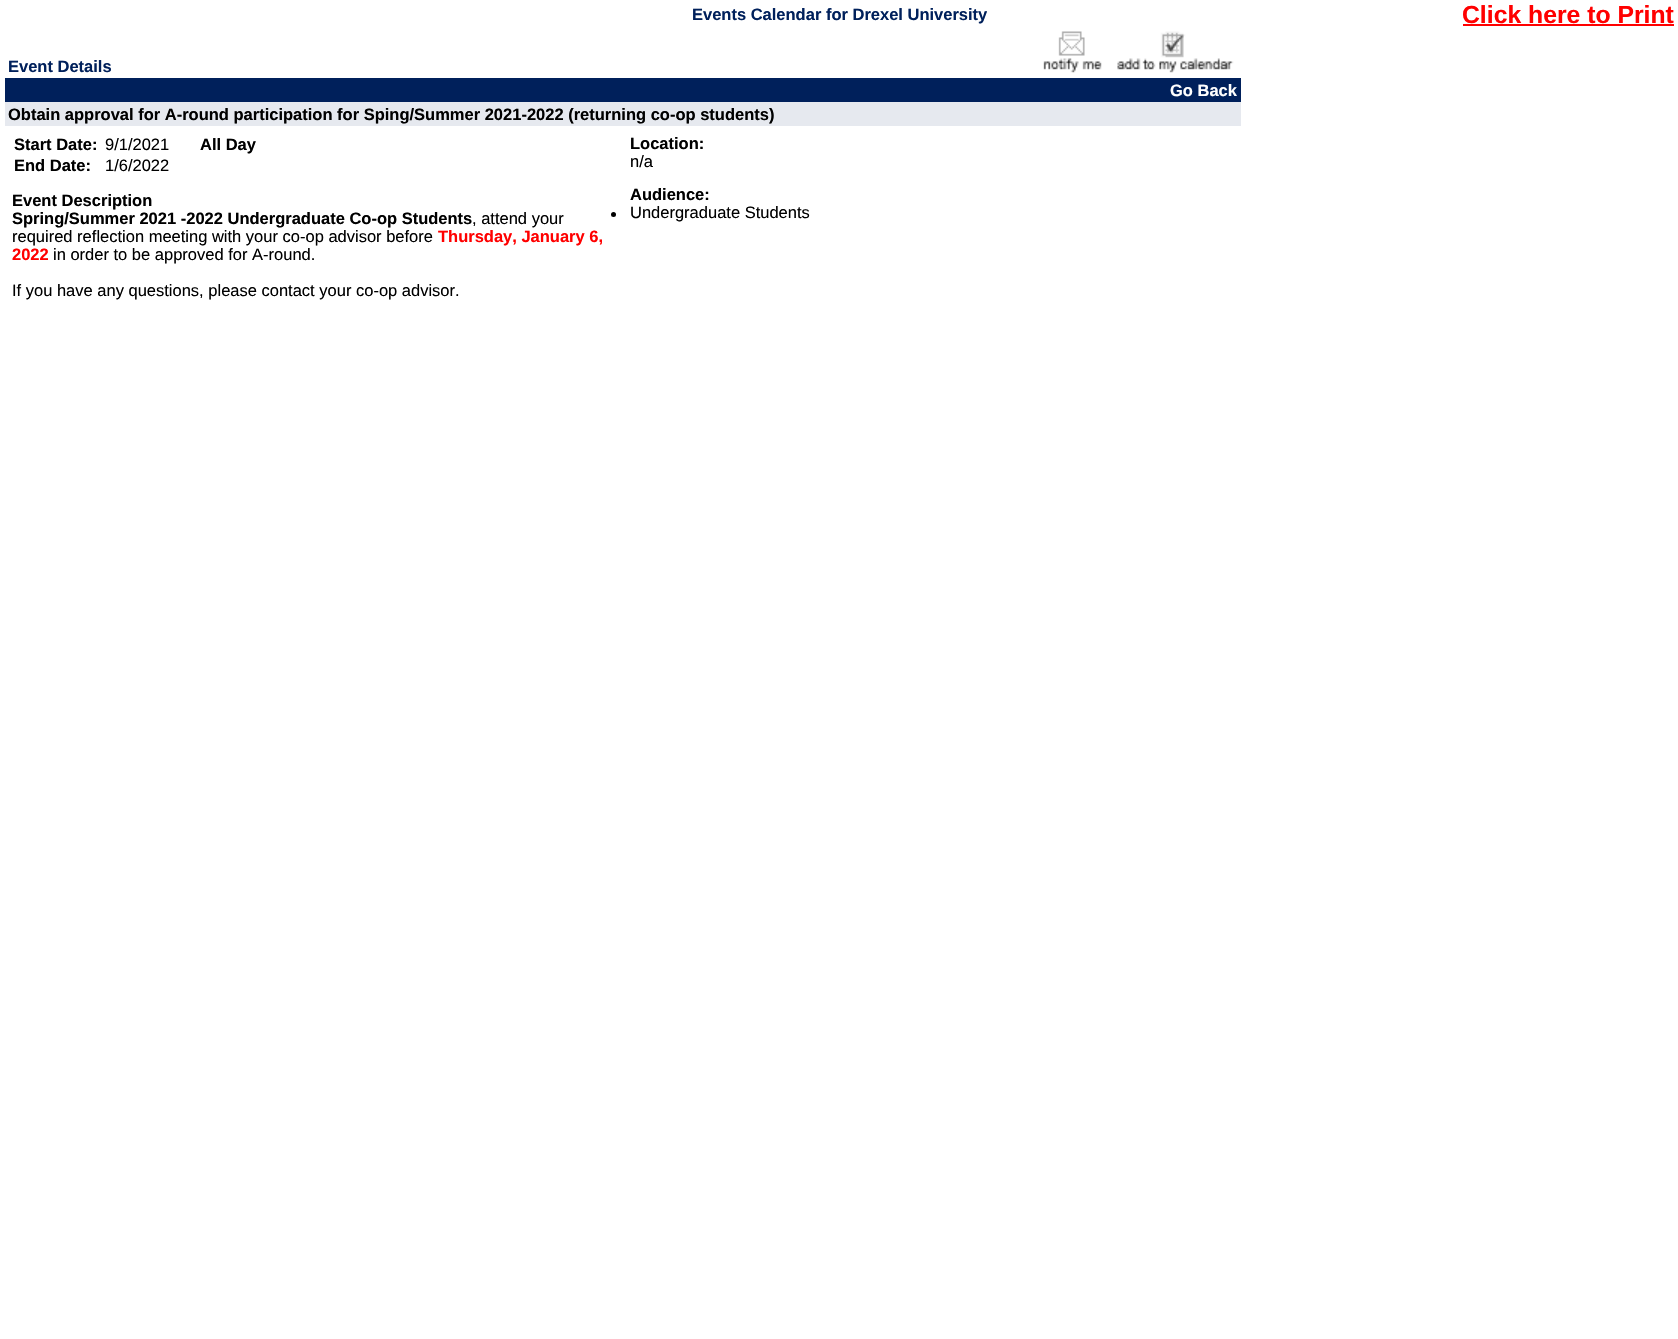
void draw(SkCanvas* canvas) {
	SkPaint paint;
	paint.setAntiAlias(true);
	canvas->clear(0xffffffff);
	SkFont f1(fontMgr->matchFamilyStyle("Liberation Sans", SkFontStyle::Bold()), 16.5);
	f1.setSubpixel(true);
	paint.setColor(0xff00205b);
	canvas->drawString("Events Calendar for Drexel University", 692, 20, f1, paint);
	SkFont f2(fontMgr->matchFamilyStyle("Liberation Sans", SkFontStyle::Bold()), 24.75);
	f2.setSubpixel(true);
	paint.setColor(0xffff0000);
	canvas->drawString("Click here to Print", 1462, 23, f2, paint);
	canvas->drawRect(SkRect::MakeXYWH(1463, 24, 211, 2), paint);
	paint.setColor(0xff00205b);
	canvas->drawString("Event Details", 8, 72, f1, paint);
	canvas->drawImageRect(SkImages::DeferredFromEncodedData(SkData::MakeFromFileName("img1.png")), SkRect::MakeXYWH(1043, 31, 59, 42), SkSamplingOptions());
	canvas->drawImageRect(SkImages::DeferredFromEncodedData(SkData::MakeFromFileName("img2.png")), SkRect::MakeXYWH(1117, 31, 117, 42), SkSamplingOptions());
	canvas->drawRect(SkRect::MakeXYWH(5, 78, 1236, 24), paint);
	paint.setColor(0xffffffff);
	canvas->drawString("Go Back", 1170, 96, f1, paint);
	paint.setColor(0xffe6e9ef);
	canvas->drawRect(SkRect::MakeXYWH(5, 102, 1236, 24), paint);
	paint.setColor(0xff000000);
	canvas->drawString("Obtain approval for A-round participation for Sping/Summer 2021-2022 (returning co-op students)", 8, 120, f1, paint);
	canvas->drawString("Start Date:", 14, 150, f1, paint);
	SkFont f3(fontMgr->matchFamilyStyle("Liberation Sans", SkFontStyle::Normal()), 16.5);
	f3.setSubpixel(true);
	canvas->drawString("9/1/2021", 105, 150, f3, paint);
	canvas->drawString("All Day", 200, 150, f1, paint);
	canvas->drawString("End Date:", 14, 171, f1, paint);
	canvas->drawString("1/6/2022", 105, 171, f3, paint);
	canvas->drawString("Event Description", 12, 206, f1, paint);
	canvas->drawString("Spring/Summer 2021 -2022 Undergraduate Co-op Students", 12, 224, f1, paint);
	canvas->drawString(", attend your", 472, 224, f3, paint);
	canvas->drawString("required reflection meeting with your co-op advisor before", 12, 242, f3, paint);
	paint.setColor(0xffff0000);
	canvas->drawString("Thursday, January 6,", 438, 242, f1, paint);
	canvas->drawString("2022", 12, 260, f1, paint);
	paint.setColor(0xff000000);
	canvas->drawString("in order to be approved for A-round.", 53, 260, f3, paint);
	canvas->drawString("If you have any questions, please contact your co-op advisor.", 12, 296, f3, paint);
	canvas->drawString("Location:", 630, 149, f1, paint);
	canvas->drawString("n/a", 630, 167, f3, paint);
	canvas->drawString("Audience:", 630, 200, f1, paint);
	canvas->drawCircle(613.5, 214.5, 2.5, paint);
	canvas->drawString("Undergraduate Students", 630, 218, f3, paint);
}
